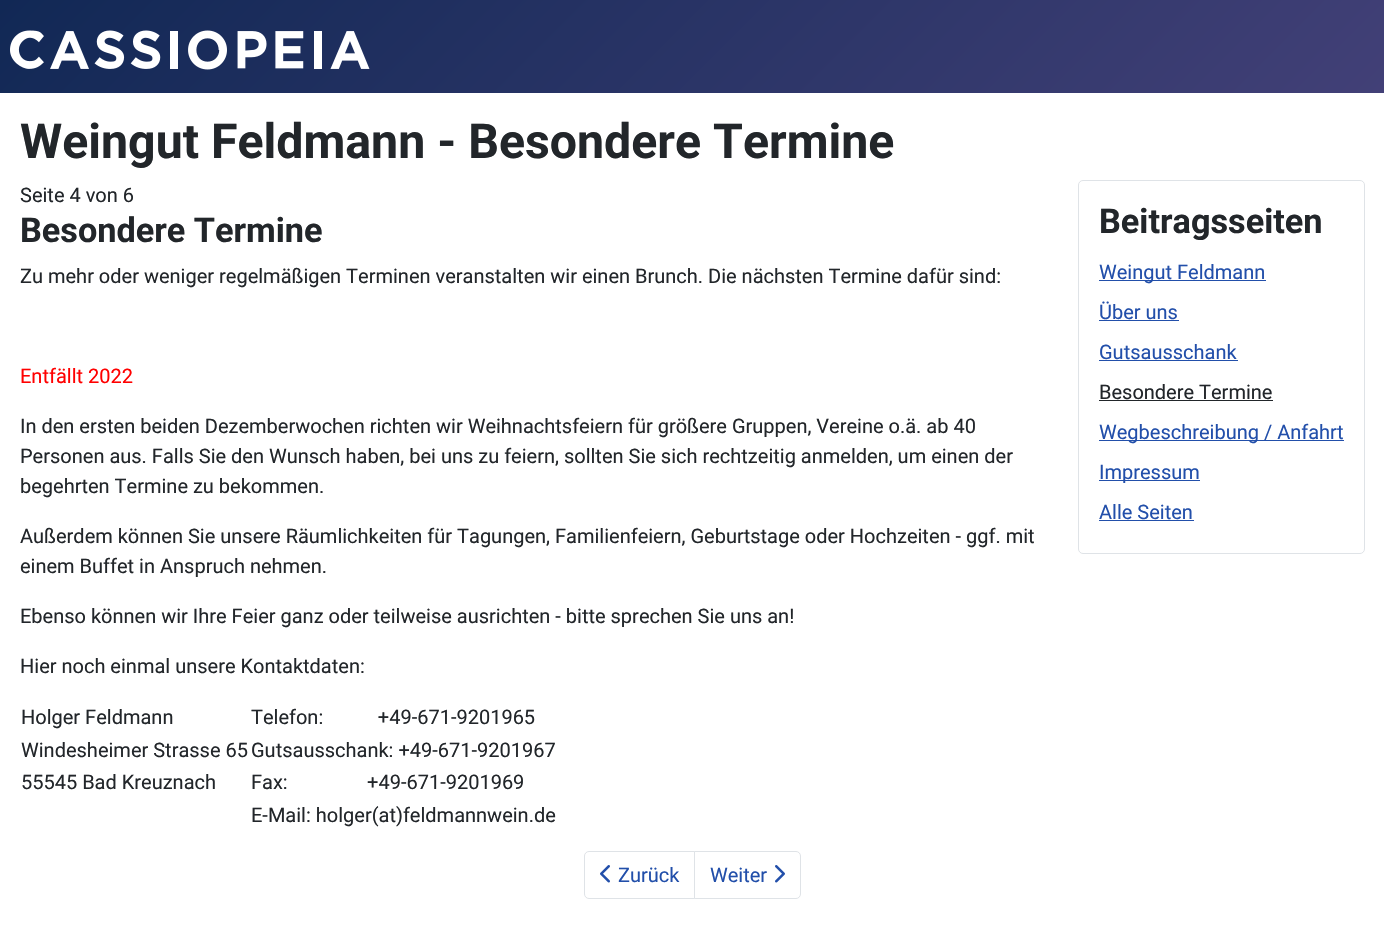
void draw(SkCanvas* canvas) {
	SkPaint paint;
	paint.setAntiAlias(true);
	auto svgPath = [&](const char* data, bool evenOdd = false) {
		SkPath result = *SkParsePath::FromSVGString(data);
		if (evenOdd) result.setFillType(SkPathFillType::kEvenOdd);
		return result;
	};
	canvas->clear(0xffffffff);
	{
		const SkColor colors[] = {0xff112855, 0xff424077};
		const float stops[] = {0, 1};
		const SkPoint ends[] = {{323, -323}, {1062, 416}};
		paint.setShader(SkGradientShader::MakeLinear(ends, colors, stops, 2, SkTileMode::kClamp));
		paint.setAlpha(255);
	}
	canvas->drawRect(SkRect::MakeXYWH(0, 0, 1384, 93), paint);
	canvas->drawImageRect(SkImages::DeferredFromEncodedData(SkData::MakeFromFileName("img1.png")), SkRect::MakeXYWH(10, 30, 360, 40), SkSamplingOptions());
	SkFont f1(fontMgr->matchFamilyStyle("Roboto", SkFontStyle::Bold()), 48.25);
	f1.setSubpixel(true);
	paint.setShader(nullptr);
	paint.setColor(0xff22262a);
	canvas->drawString("Weingut Feldmann - Besondere Termine", 20, 158, f1, paint);
	SkFont f2(fontMgr->matchFamilyStyle("Roboto", SkFontStyle::Normal()), 20);
	f2.setSubpixel(true);
	canvas->drawString("Seite 4 von 6", 20, 202, f2, paint);
	SkFont f3(fontMgr->matchFamilyStyle("Roboto", SkFontStyle::Bold()), 34.25);
	f3.setSubpixel(true);
	canvas->drawString("Besondere Termine", 20, 242, f3, paint);
	canvas->drawString("Zu mehr oder weniger regelmäßigen Terminen veranstalten wir einen Brunch. Die nächsten Termine dafür sind:", 20, 283, f2, paint);
	paint.setColor(0xffff0000);
	canvas->drawString("Entfällt 2022", 20, 383, f2, paint);
	paint.setColor(0xff22262a);
	canvas->drawString("In den ersten beiden Dezemberwochen richten wir Weihnachtsfeiern für größere Gruppen, Vereine o.ä. ab 40", 20, 433, f2, paint);
	canvas->drawString("Personen aus. Falls Sie den Wunsch haben, bei uns zu feiern, sollten Sie sich rechtzeitig anmelden, um einen der", 20, 463, f2, paint);
	canvas->drawString("begehrten Termine zu bekommen.", 20, 493, f2, paint);
	canvas->drawString("Außerdem können Sie unsere Räumlichkeiten für Tagungen, Familienfeiern, Geburtstage oder Hochzeiten - ggf. mit", 20, 543, f2, paint);
	canvas->drawString("einem Buffet in Anspruch nehmen.", 20, 573, f2, paint);
	canvas->drawString("Ebenso können wir Ihre Feier ganz oder teilweise ausrichten - bitte sprechen Sie uns an!", 20, 623, f2, paint);
	canvas->drawString("Hier noch einmal unsere Kontaktdaten:", 20, 673, f2, paint);
	canvas->drawString("Holger Feldmann", 21, 724, f2, paint);
	canvas->drawString("Telefon:           +49-671-9201965", 251, 724, f2, paint);
	canvas->drawString("Windesheimer Strasse 65", 21, 757, f2, paint);
	canvas->drawString("Gutsausschank: +49-671-9201967", 251, 757, f2, paint);
	canvas->drawString("55545 Bad Kreuznach", 21, 789, f2, paint);
	canvas->drawString("Fax:                +49-671-9201969", 251, 789, f2, paint);
	canvas->drawString("E-Mail: holger(at)feldmannwein.de", 251, 822, f2, paint);
	paint.setStroke(true);
	paint.setStrokeWidth(1);
	paint.setColor(0xffdfe3e7);
	canvas->drawPath(svgPath("M589 851.5H694.5V898.5H589C586.5 898.5 584.5 896.5 584.5 894V856C584.5 853.5 586.5 851.5 589 851.5Z"), paint);
	canvas->drawImageRect(SkImages::DeferredFromEncodedData(SkData::MakeFromFileName("img2.png")), SkRect::MakeXYWH(600, 865, 10, 18), SkSamplingOptions());
	paint.setStroke(false);
	paint.setColor(0xff224faa);
	canvas->drawString("Zurück", 618, 882, f2, paint);
	paint.setColor(0xffffffff);
	canvas->drawPath(svgPath("M694.5 851.5H796C798.5 851.5 800.5 853.5 800.5 856V894C800.5 896.5 798.5 898.5 796 898.5H694.5Z"), paint);
	paint.setStroke(true);
	paint.setColor(0xffdfe3e7);
	canvas->drawPath(svgPath("M694.5 851.5H796C798.5 851.5 800.5 853.5 800.5 856V894C800.5 896.5 798.5 898.5 796 898.5H694.5Z"), paint);
	paint.setStroke(false);
	paint.setColor(0xff224faa);
	canvas->drawString("Weiter", 710, 882, f2, paint);
	canvas->drawImageRect(SkImages::DeferredFromEncodedData(SkData::MakeFromFileName("img3.png")), SkRect::MakeXYWH(775, 865, 10, 18), SkSamplingOptions());
	paint.setStroke(true);
	paint.setColor(0xffdfe3e7);
	canvas->drawRoundRect(SkRect::MakeXYWH(1078.5, 180.5, 286, 373), 4.5, 4.5, paint);
	paint.setStroke(false);
	paint.setColor(0xff22262a);
	canvas->drawString("Beitragsseiten", 1099, 233, f3, paint);
	paint.setColor(0xff224faa);
	canvas->drawRect(SkRect::MakeXYWH(1099, 280, 167, 1), paint);
	canvas->drawString("Weingut Feldmann", 1099, 279, f2, paint);
	canvas->drawString("Über uns", 1099, 319, f2, paint);
	canvas->drawRect(SkRect::MakeXYWH(1099, 320, 80, 1), paint);
	canvas->drawString("Gutsausschank", 1099, 359, f2, paint);
	canvas->drawRect(SkRect::MakeXYWH(1099, 360, 139, 1), paint);
	paint.setColor(0xff22262a);
	canvas->drawString("Besondere Termine", 1099, 399, f2, paint);
	canvas->drawRect(SkRect::MakeXYWH(1099, 400, 174, 1), paint);
	paint.setColor(0xff224faa);
	canvas->drawRect(SkRect::MakeXYWH(1099, 440, 245, 1), paint);
	canvas->drawString("Wegbeschreibung / Anfahrt", 1099, 439, f2, paint);
	canvas->drawRect(SkRect::MakeXYWH(1099, 480, 101, 1), paint);
	canvas->drawString("Impressum", 1099, 479, f2, paint);
	canvas->drawString("Alle Seiten", 1099, 519, f2, paint);
	canvas->drawRect(SkRect::MakeXYWH(1099, 520, 95, 1), paint);
}
